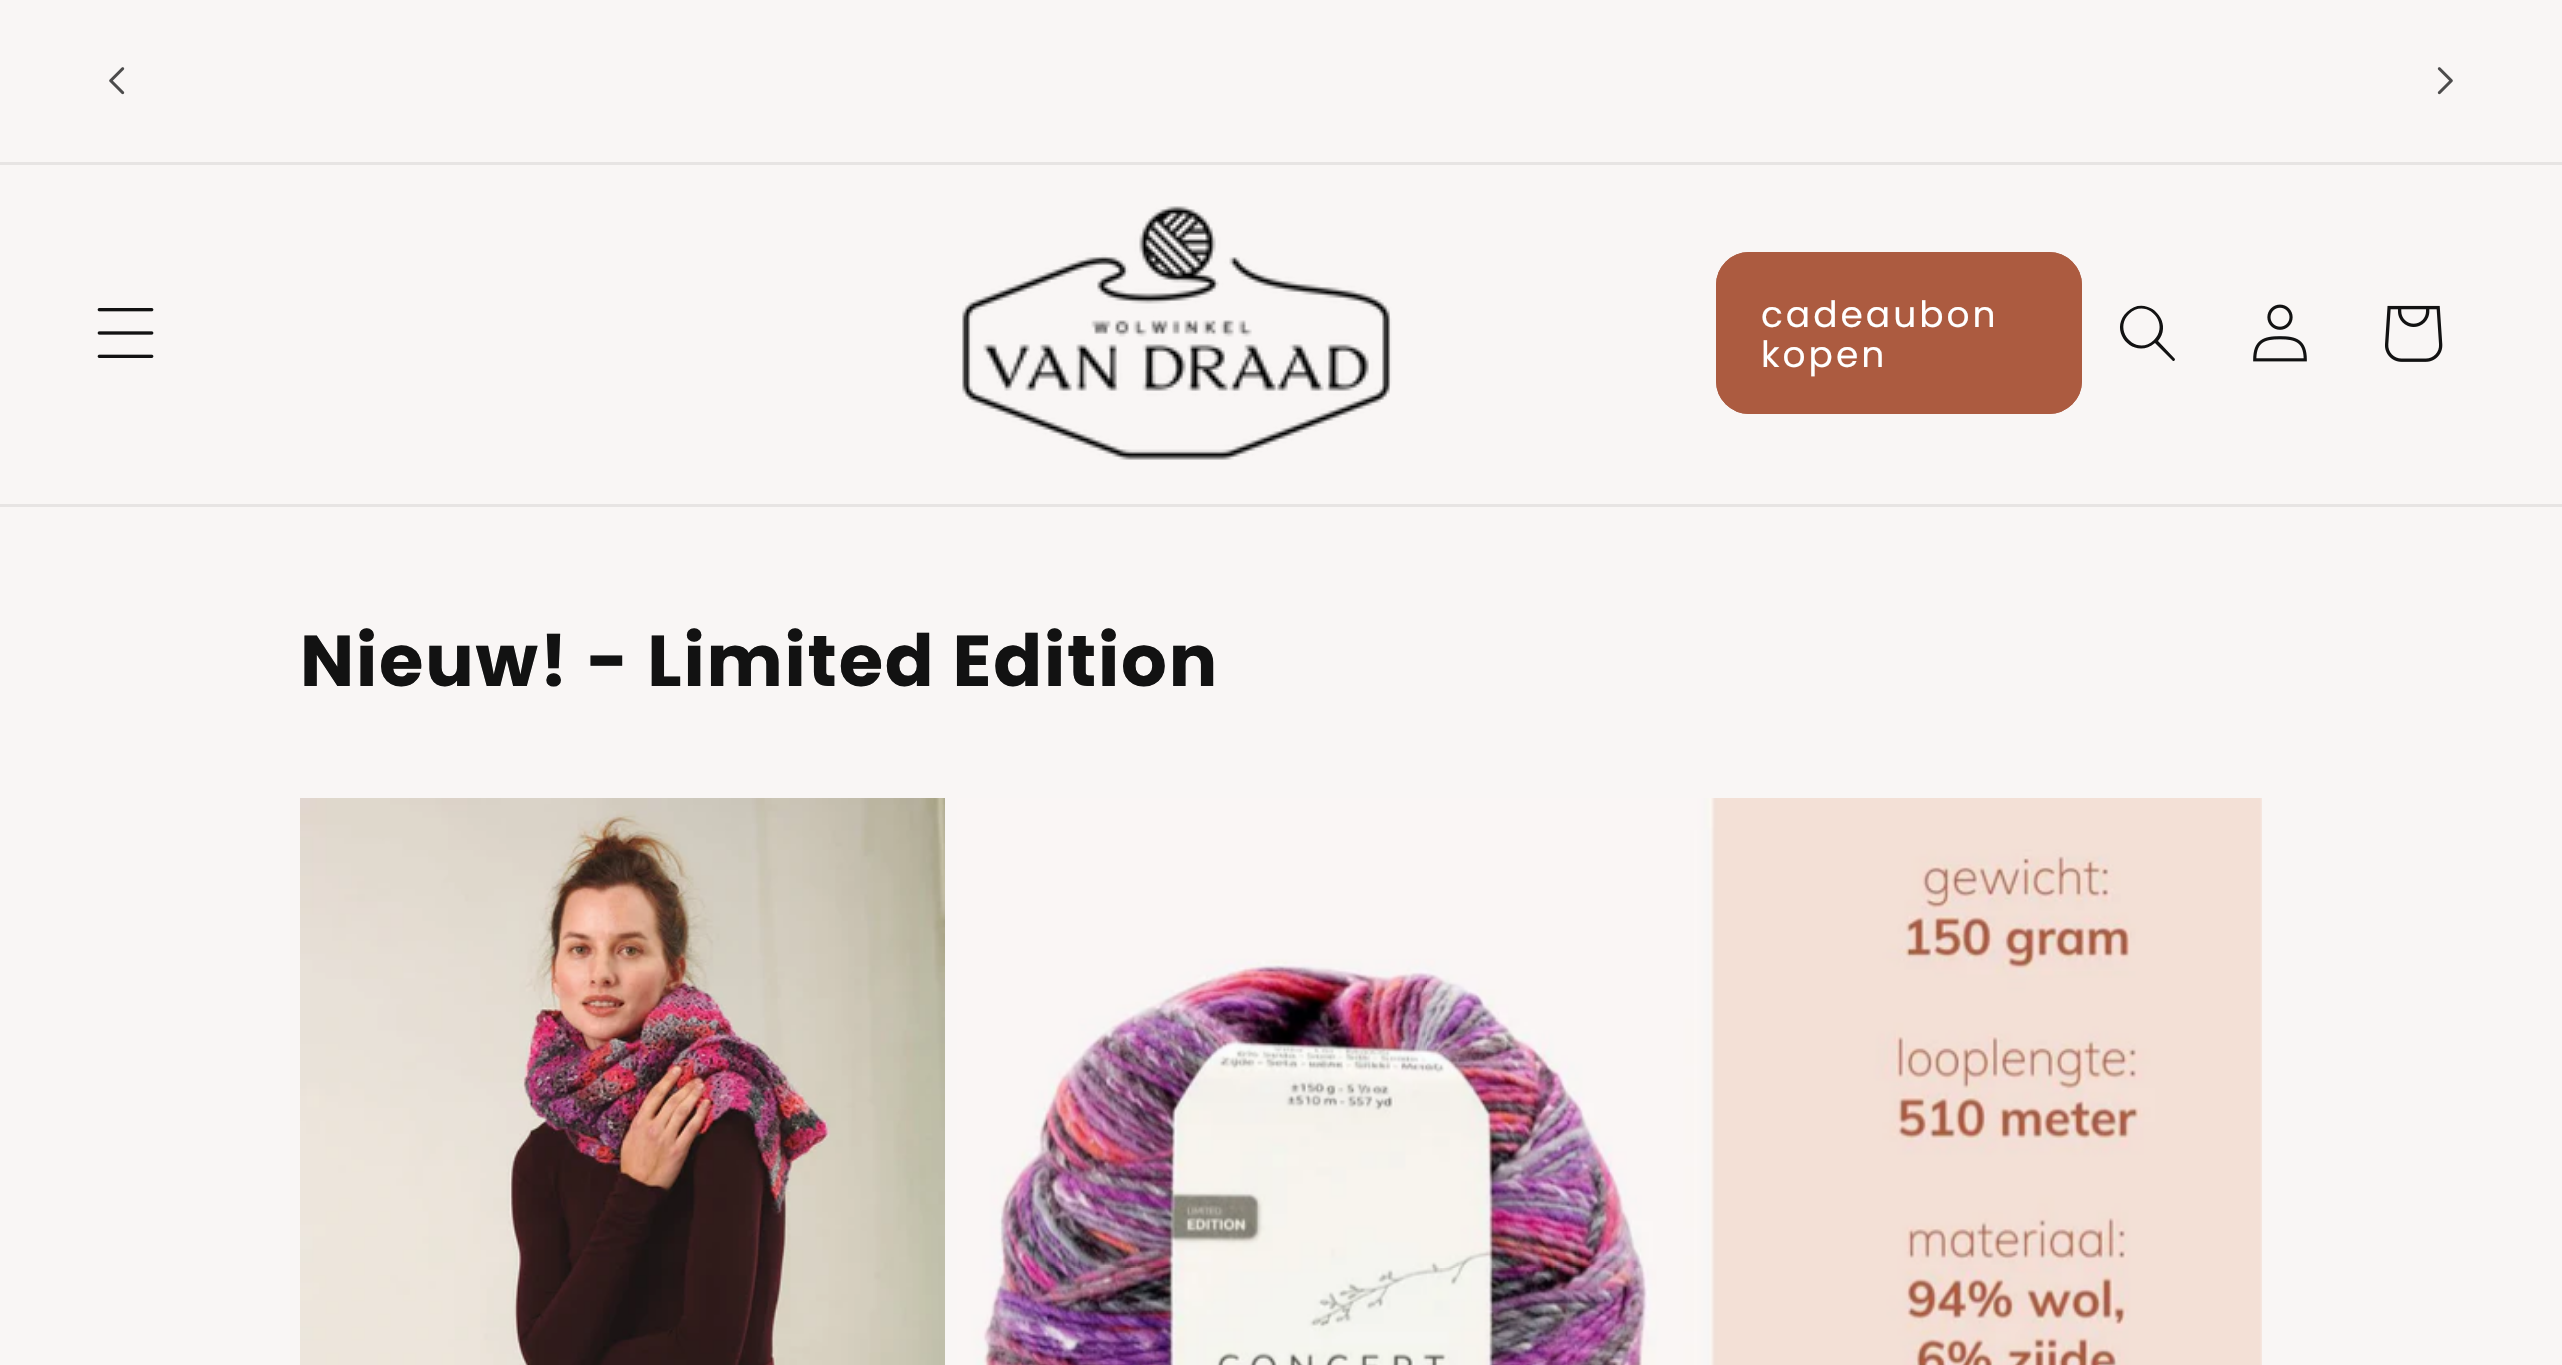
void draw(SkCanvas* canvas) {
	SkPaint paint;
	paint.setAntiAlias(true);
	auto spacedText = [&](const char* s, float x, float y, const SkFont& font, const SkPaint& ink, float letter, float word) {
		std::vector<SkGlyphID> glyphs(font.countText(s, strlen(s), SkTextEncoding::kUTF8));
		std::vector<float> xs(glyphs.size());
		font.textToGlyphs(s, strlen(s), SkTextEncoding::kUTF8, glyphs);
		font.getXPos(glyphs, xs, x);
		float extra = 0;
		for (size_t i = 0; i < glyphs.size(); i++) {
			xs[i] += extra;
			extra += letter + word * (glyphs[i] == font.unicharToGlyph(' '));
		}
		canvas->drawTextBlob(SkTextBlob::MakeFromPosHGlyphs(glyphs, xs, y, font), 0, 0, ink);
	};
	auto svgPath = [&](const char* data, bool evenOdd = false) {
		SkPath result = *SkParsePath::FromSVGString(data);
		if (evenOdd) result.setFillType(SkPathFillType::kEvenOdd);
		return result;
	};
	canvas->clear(0xfff9f6f5);
	paint.setColor(0xffe7e4e3);
	canvas->drawRect(SkRect::MakeXYWH(0, 162, 2562, 3), paint);
	canvas->drawImageRect(SkImages::DeferredFromEncodedData(SkData::MakeFromFileName("img1.png")), SkRect::MakeXYWH(109, 67, 16, 28), SkSamplingOptions());
	canvas->drawImageRect(SkImages::DeferredFromEncodedData(SkData::MakeFromFileName("img2.png")), SkRect::MakeXYWH(2437, 67, 16, 28), SkSamplingOptions());
	canvas->drawRect(SkRect::MakeXYWH(0, 504, 2562, 3), paint);
	canvas->drawImageRect(SkImages::DeferredFromEncodedData(SkData::MakeFromFileName("img3.png")), SkRect::MakeXYWH(97, 308, 57, 50), SkSamplingOptions());
	canvas->drawImageRect(SkImages::DeferredFromEncodedData(SkData::MakeFromFileName("img4.png")), SkRect::MakeXYWH(962, 206, 430, 254), SkSamplingOptions());
	paint.setColor(0xffac5b40);
	canvas->drawRoundRect(SkRect::MakeXYWH(1716, 252, 366, 162), 33, 33, paint);
	paint.setStroke(true);
	paint.setStrokeWidth(3);
	canvas->drawRoundRect(SkRect::MakeXYWH(1717.5, 253.5, 363, 159), 31.5, 31.5, paint);
	SkFont f1(fontMgr->matchFamilyStyle("Poppins", SkFontStyle::Normal()), 36);
	f1.setSubpixel(true);
	paint.setStroke(false);
	paint.setColor(0xffffffff);
	spacedText("cadeaubon", 1761, 327, f1, paint, 3, 0);
	spacedText("kopen", 1761, 367, f1, paint, 3, 0);
	paint.setColor(0xff121212);
	canvas->drawPath(svgPath("M2154 340C2137 357 2112 331 2129 314C2146 297 2171 323 2154 340M2155 343C2134 361 2107 331 2127 312C2146 293 2175 321 2158 341L2175 359C2175 361 2173 362 2172 360Z", true), paint);
	canvas->drawImageRect(SkImages::DeferredFromEncodedData(SkData::MakeFromFileName("img5.png")), SkRect::MakeXYWH(2253, 304, 54, 58), SkSamplingOptions());
	canvas->drawImageRect(SkImages::DeferredFromEncodedData(SkData::MakeFromFileName("img6.png")), SkRect::MakeXYWH(2385, 305, 58, 57), SkSamplingOptions());
	SkFont f2(fontMgr->matchFamilyStyle("Poppins", SkFontStyle::Bold()), 72);
	f2.setSubpixel(true);
	spacedText("Nieuw! - Limited Edition", 300, 686, f2, paint, 1.8, 0);
	canvas->drawImageRect(SkImages::DeferredFromEncodedData(SkData::MakeFromFileName("img7.png")), SkRect::MakeXYWH(300, 798, 645, 567), SkSamplingOptions());
	canvas->drawImageRect(SkImages::DeferredFromEncodedData(SkData::MakeFromFileName("img8.png")), SkRect::MakeXYWH(957, 798, 1305, 567), SkSamplingOptions());
}
